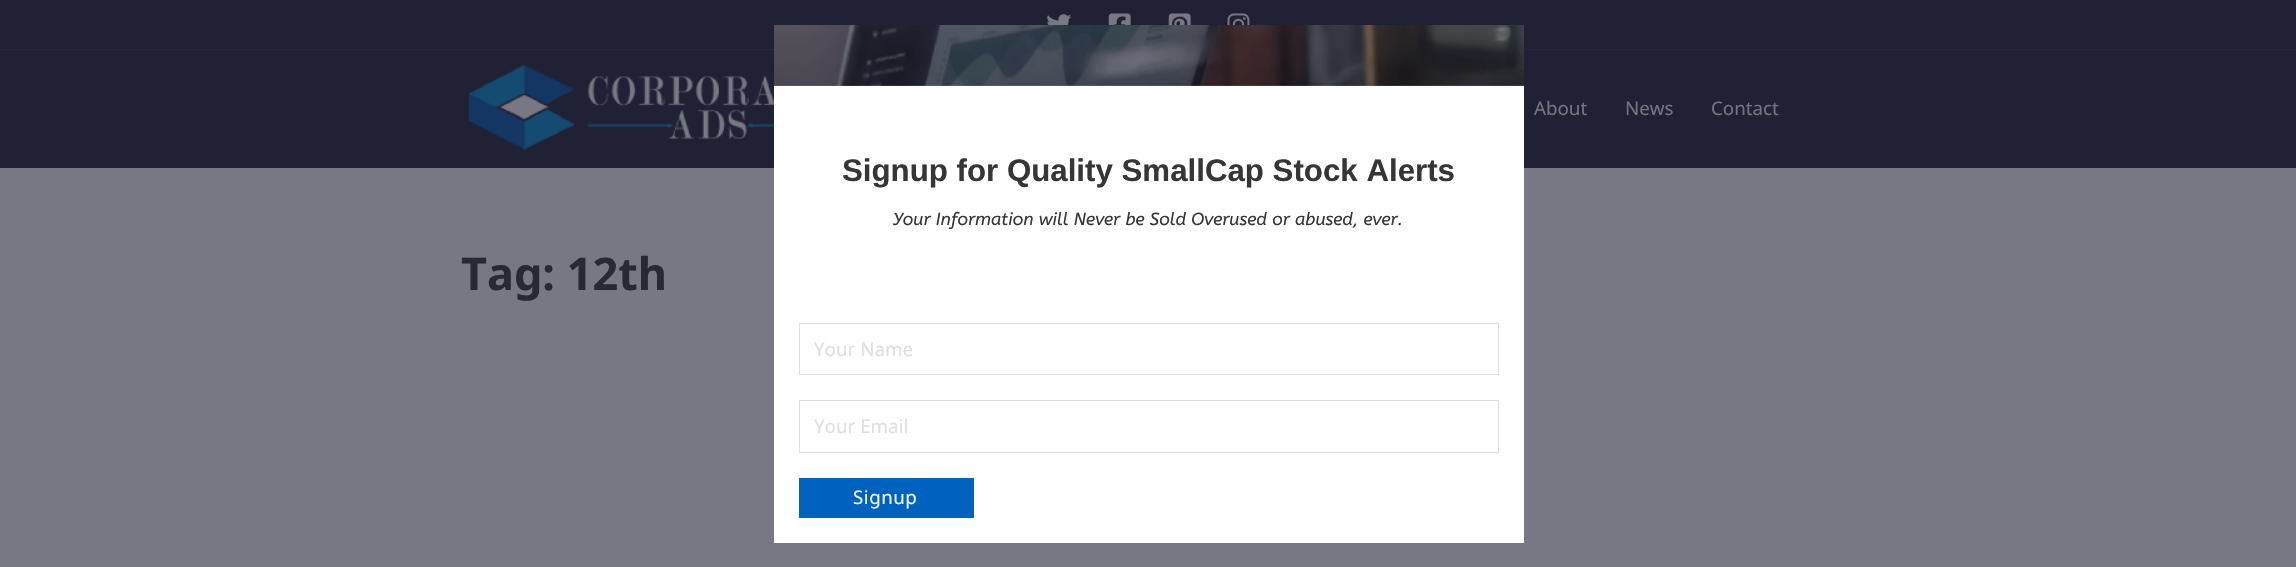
void draw(SkCanvas* canvas) {
	SkPaint paint;
	paint.setAntiAlias(true);
	auto spacedText = [&](const char* s, float x, float y, const SkFont& font, const SkPaint& ink, float letter, float word) {
		std::vector<SkGlyphID> glyphs(font.countText(s, strlen(s), SkTextEncoding::kUTF8));
		std::vector<float> xs(glyphs.size());
		font.textToGlyphs(s, strlen(s), SkTextEncoding::kUTF8, glyphs);
		font.getXPos(glyphs, xs, x);
		float extra = 0;
		for (size_t i = 0; i < glyphs.size(); i++) {
			xs[i] += extra;
			extra += letter + word * (glyphs[i] == font.unicharToGlyph(' '));
		}
		canvas->drawTextBlob(SkTextBlob::MakeFromPosHGlyphs(glyphs, xs, y, font), 0, 0, ink);
	};
	canvas->clear(0xff787884);
	paint.setColor(0xff212136);
	canvas->drawRect(SkRect::MakeXYWH(0, 0, 2296, 49), paint);
	paint.setColor(0xff26263f);
	canvas->drawRect(SkRect::MakeXYWH(0, 49, 2296, 1), paint);
	canvas->drawImageRect(SkImages::DeferredFromEncodedData(SkData::MakeFromFileName("img1.png")), SkRect::MakeXYWH(1047, 14, 25, 11), SkSamplingOptions());
	canvas->drawImageRect(SkImages::DeferredFromEncodedData(SkData::MakeFromFileName("img2.png")), SkRect::MakeXYWH(1108, 13, 23, 12), SkSamplingOptions());
	canvas->drawImageRect(SkImages::DeferredFromEncodedData(SkData::MakeFromFileName("img3.png")), SkRect::MakeXYWH(1168, 13, 23, 12), SkSamplingOptions());
	canvas->drawImageRect(SkImages::DeferredFromEncodedData(SkData::MakeFromFileName("img4.png")), SkRect::MakeXYWH(1227, 13, 23, 12), SkSamplingOptions());
	paint.setColor(0xff212136);
	canvas->drawRect(SkRect::MakeXYWH(0, 50, 2296, 118), paint);
	canvas->drawImageRect(SkImages::DeferredFromEncodedData(SkData::MakeFromFileName("img5.png")), SkRect::MakeXYWH(468, 64, 306, 87), SkSamplingOptions());
	SkFont f1(fontMgr->matchFamilyStyle("Noto Sans", SkFontStyle::Normal()), 18.75);
	f1.setSubpixel(true);
	paint.setColor(0xff747481);
	canvas->drawString("About", 1534, 115, f1, paint);
	canvas->drawString("News", 1625, 115, f1, paint);
	canvas->drawString("Contact", 1711, 115, f1, paint);
	SkFont f2(fontMgr->matchFamilyStyle("Noto Sans", SkFontStyle::Bold()), 45);
	f2.setSubpixel(true);
	paint.setColor(0xff292936);
	canvas->drawString("Tag: 12th", 461, 290, f2, paint);
	paint.setColor(0xffffffff);
	canvas->drawRect(SkRect::MakeXYWH(774, 85, 750, 458), paint);
	canvas->drawImageRect(SkImages::DeferredFromEncodedData(SkData::MakeFromFileName("img6.png")), SkRect::MakeXYWH(774, 25, 750, 61), SkSamplingOptions());
	paint.setColor(0x47212136);
	canvas->drawRect(SkRect::MakeXYWH(774, 25, 750, 61), paint);
	SkFont f3(fontMgr->matchFamilyStyle("Liberation Sans", SkFontStyle::Bold()), 31.25);
	f3.setSubpixel(true);
	paint.setColor(0xff363636);
	canvas->drawString("Signup for Quality SmallCap Stock Alerts", 842, 181, f3, paint);
	SkFont f4(fontMgr->matchFamilyStyle("ABeeZee", SkFontStyle::Italic()), 17.5);
	f4.setSubpixel(true);
	canvas->drawString("Your Information will Never be Sold Overused or abused, ever.", 893, 225, f4, paint);
	paint.setStroke(true);
	paint.setStrokeWidth(1);
	paint.setColor(0xffdddedf);
	canvas->drawRect(SkRect::MakeXYWH(799.5, 323.5, 699, 51), paint);
	paint.setStroke(false);
	canvas->drawString("Your Name", 814, 356, f1, paint);
	paint.setStroke(true);
	canvas->drawRect(SkRect::MakeXYWH(799.5, 400.5, 699, 52), paint);
	paint.setStroke(false);
	canvas->drawString("Your Email", 814, 433, f1, paint);
	paint.setColor(0xff0062bf);
	canvas->drawRect(SkRect::MakeXYWH(799, 478, 175, 40), paint);
	paint.setColor(0xfff6f6f6);
	spacedText("Signup", 853, 504, f1, paint, 0.5, 0);
}
